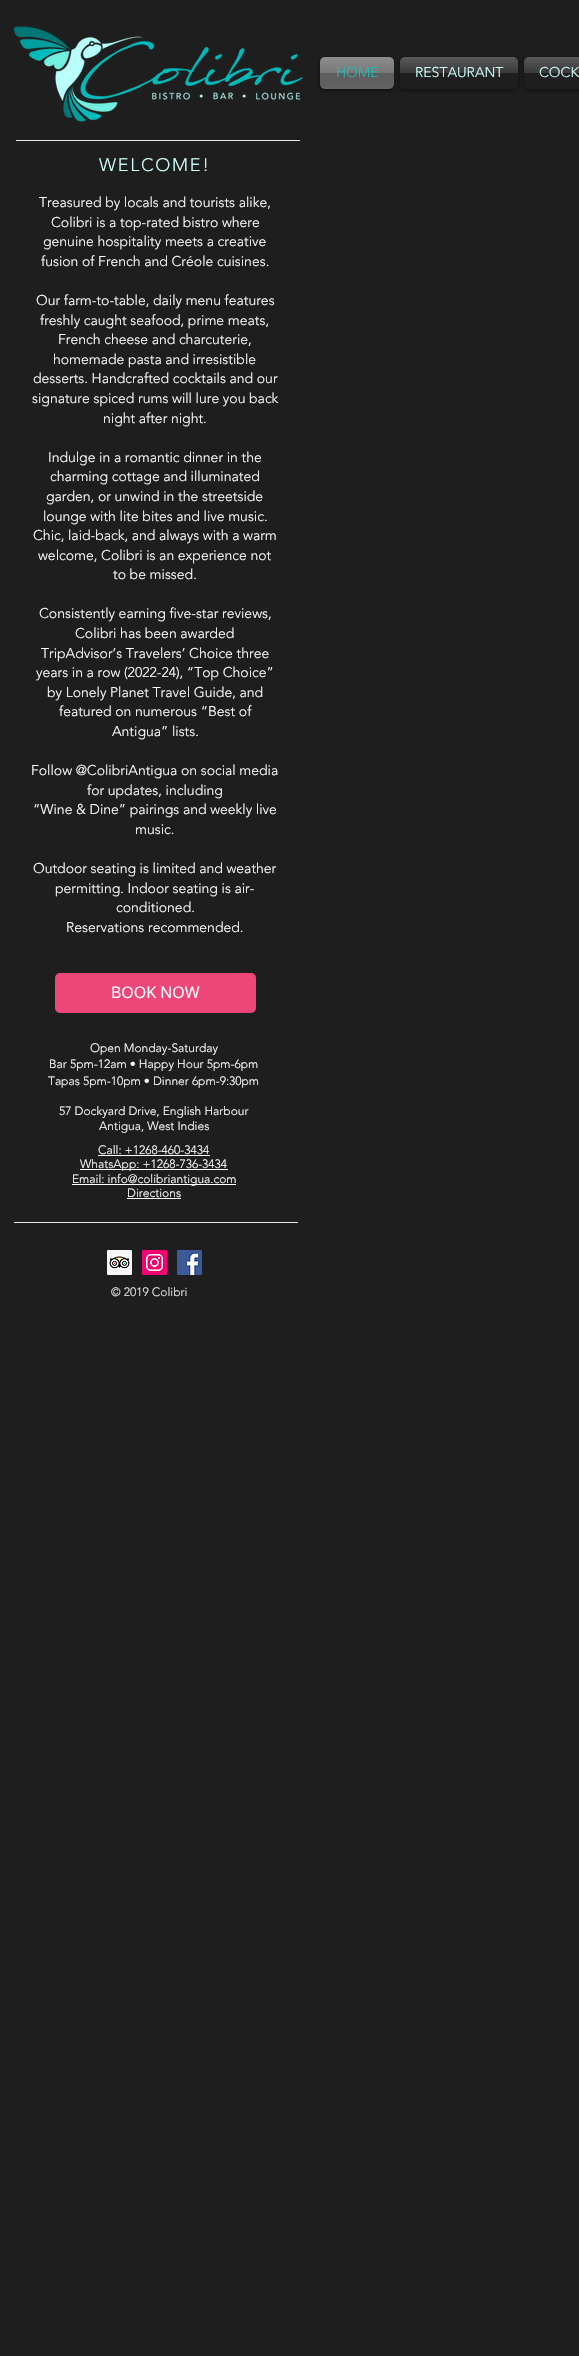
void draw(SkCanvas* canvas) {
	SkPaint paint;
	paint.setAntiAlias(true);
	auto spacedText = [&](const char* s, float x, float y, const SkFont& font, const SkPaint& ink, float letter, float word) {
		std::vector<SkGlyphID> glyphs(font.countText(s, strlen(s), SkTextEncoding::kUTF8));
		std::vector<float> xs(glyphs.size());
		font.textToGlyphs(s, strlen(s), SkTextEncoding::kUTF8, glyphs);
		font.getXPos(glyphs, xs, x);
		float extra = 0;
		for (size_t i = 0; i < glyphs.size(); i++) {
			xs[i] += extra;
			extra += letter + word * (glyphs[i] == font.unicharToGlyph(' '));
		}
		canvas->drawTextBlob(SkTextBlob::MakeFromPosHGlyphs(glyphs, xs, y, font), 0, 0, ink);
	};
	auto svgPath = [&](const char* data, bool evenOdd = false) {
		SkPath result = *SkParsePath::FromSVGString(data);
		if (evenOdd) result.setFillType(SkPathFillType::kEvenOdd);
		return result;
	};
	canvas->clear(0xff1e1e1e);
	canvas->drawImageRect(SkImages::DeferredFromEncodedData(SkData::MakeFromFileName("img1.png")), SkRect::MakeXYWH(13, 26, 290, 96), SkSamplingOptions());
	paint.setColor(0xffeaeaea);
	canvas->drawRect(SkRect::MakeXYWH(16, 140, 284, 1), paint);
	paint.setColor(0x99000000);
	paint.setMaskFilter(SkMaskFilter::MakeBlur(kNormal_SkBlurStyle, 2));
	canvas->drawRoundRect(SkRect::MakeXYWH(320, 58, 74, 32), 5, 5, paint);
	paint.setMaskFilter(nullptr);
	paint.setColor(0xff656565);
	canvas->drawRoundRect(SkRect::MakeXYWH(320, 57, 74, 32), 5, 5, paint);
	canvas->drawImageRect(SkImages::DeferredFromEncodedData(SkData::MakeFromFileName("img2.png")), SkRect::MakeXYWH(320, 57, 74, 30), SkSamplingOptions());
	SkFont f1(fontMgr->matchFamilyStyle("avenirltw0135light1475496", SkFontStyle(300, SkFontStyle::kNormal_Width, SkFontStyle::kUpright_Slant)), 14);
	f1.setSubpixel(true);
	paint.setColor(0xff23bcbc);
	canvas->drawString("HOME", 336, 77, f1, paint);
	canvas->save();
	canvas->clipPath(svgPath("M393 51H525V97H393ZM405 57H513C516 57 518 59 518 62V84C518 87 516 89 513 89H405C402 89 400 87 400 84V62C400 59 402 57 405 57Z", true), true);
	paint.setColor(0x99000000);
	paint.setMaskFilter(SkMaskFilter::MakeBlur(kNormal_SkBlurStyle, 2));
	canvas->drawRoundRect(SkRect::MakeXYWH(400, 58, 118, 32), 5, 5, paint);
	paint.setMaskFilter(nullptr);
	canvas->restore();
	canvas->drawImageRect(SkImages::DeferredFromEncodedData(SkData::MakeFromFileName("img3.png")), SkRect::MakeXYWH(400, 57, 118, 16), SkSamplingOptions());
	paint.setColor(0xffcffffc);
	canvas->drawString("RESTAURANT", 415, 77, f1, paint);
	canvas->save();
	canvas->clipPath(svgPath("M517 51H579V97H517ZM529 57H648C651 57 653 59 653 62V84C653 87 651 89 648 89H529C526 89 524 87 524 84V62C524 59 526 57 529 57Z", true), true);
	paint.setColor(0x99000000);
	paint.setMaskFilter(SkMaskFilter::MakeBlur(kNormal_SkBlurStyle, 2));
	canvas->drawRoundRect(SkRect::MakeXYWH(524, 58, 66, 32), 5, 5, paint);
	paint.setMaskFilter(nullptr);
	canvas->restore();
	canvas->drawImageRect(SkImages::DeferredFromEncodedData(SkData::MakeFromFileName("img4.png")), SkRect::MakeXYWH(524, 57, 55, 16), SkSamplingOptions());
	paint.setColor(0xffcffffc);
	canvas->drawString("COCK", 539, 77, f1, paint);
	SkFont f2(fontMgr->matchFamilyStyle("avenirltw0135light1475496", SkFontStyle(300, SkFontStyle::kNormal_Width, SkFontStyle::kUpright_Slant)), 18);
	f2.setSubpixel(true);
	spacedText("WELCOME!", 99, 171, f2, paint, 1.75, 0);
	paint.setColor(0xffffffff);
	canvas->drawString("Treasured by locals and tourists alike,", 39, 207, f1, paint);
	canvas->drawString("Colibri is a top-rated bistro where", 51, 227, f1, paint);
	canvas->drawString("genuine hospitality meets a creative", 43, 246, f1, paint);
	canvas->drawString("fusion of French and Créole cuisines.", 41, 266, f1, paint);
	canvas->drawString("Our farm-to-table, daily menu features", 36, 305, f1, paint);
	canvas->drawString("freshly caught seafood, prime meats,", 40, 325, f1, paint);
	canvas->drawString("French cheese and charcuterie,", 58, 344, f1, paint);
	canvas->drawString("homemade pasta and irresistible", 53, 364, f1, paint);
	canvas->drawString("desserts. Handcrafted cocktails and our", 33, 383, f1, paint);
	canvas->drawString("signature spiced rums will lure you back", 32, 403, f1, paint);
	canvas->drawString("night after night.", 103, 423, f1, paint);
	canvas->drawString("Indulge in a romantic dinner in the", 48, 462, f1, paint);
	canvas->drawString("charming cottage and illuminated", 50, 481, f1, paint);
	canvas->drawString("garden, or unwind in the streetside", 46, 501, f1, paint);
	canvas->drawString("lounge with lite bites and live music.", 43, 521, f1, paint);
	canvas->drawString("Chic, laid-back, and always with a warm", 33, 540, f1, paint);
	canvas->drawString("welcome, Colibri is an experience not", 38, 560, f1, paint);
	canvas->drawString("to be missed.", 113, 579, f1, paint);
	canvas->drawString("Consistently earning five-star reviews,", 39, 618, f1, paint);
	canvas->drawString("Colibri has been awarded", 75, 638, f1, paint);
	canvas->drawString("TripAdvisor’s Travelers’ Choice three", 41, 658, f1, paint);
	canvas->drawString("years in a row (2022-24), “Top Choice”", 36, 677, f1, paint);
	canvas->drawString("by Lonely Planet Travel Guide, and", 47, 697, f1, paint);
	canvas->drawString("featured on numerous “Best of", 59, 716, f1, paint);
	canvas->drawString("Antigua” lists.", 112, 736, f1, paint);
	canvas->drawString("Follow @ColibriAntigua on social media", 31, 775, f1, paint);
	canvas->drawString("for updates, including", 87, 795, f1, paint);
	canvas->drawString("“Wine & Dine” pairings and weekly live", 33, 814, f1, paint);
	canvas->drawString("music.", 135, 834, f1, paint);
	canvas->drawString("Outdoor seating is limited and weather", 33, 873, f1, paint);
	canvas->drawString("permitting. Indoor seating is air-", 55, 893, f1, paint);
	canvas->drawString("conditioned.", 116, 912, f1, paint);
	canvas->drawString("Reservations recommended.", 66, 932, f1, paint);
	paint.setColor(0xffed4779);
	canvas->drawRoundRect(SkRect::MakeXYWH(55, 973, 201, 40), 5, 5, paint);
	SkFont f3(fontMgr->matchFamilyStyle("Open Sans", SkFontStyle::Normal()), 16);
	f3.setSubpixel(true);
	paint.setColor(0xffffffff);
	canvas->drawString("BOOK NOW", 111, 998, f3, paint);
	SkFont f4(fontMgr->matchFamilyStyle("avenirltw0135light1475496", SkFontStyle(300, SkFontStyle::kNormal_Width, SkFontStyle::kUpright_Slant)), 12);
	f4.setSubpixel(true);
	canvas->drawString("Open Monday-Saturday", 90, 1052, f4, paint);
	canvas->drawString("Bar 5pm-12am • Happy Hour 5pm-6pm", 49, 1068, f4, paint);
	canvas->drawString("Tapas 5pm-10pm • Dinner 6pm-9:30pm", 48, 1085, f4, paint);
	canvas->drawString("57 Dockyard Drive, English Harbour", 59, 1115, f4, paint);
	canvas->drawString("Antigua, West Indies", 99, 1130, f4, paint);
	canvas->drawString("Call: +1268-460-3434", 98, 1154, f4, paint);
	canvas->drawRect(SkRect::MakeXYWH(98, 1155, 112, 1), paint);
	canvas->drawRect(SkRect::MakeXYWH(80, 1169, 148, 1), paint);
	canvas->drawString("WhatsApp: +1268-736-3434", 80, 1168, f4, paint);
	canvas->drawRect(SkRect::MakeXYWH(72, 1184, 164, 1), paint);
	canvas->drawString("Email: info@colibriantigua.com", 72, 1183, f4, paint);
	canvas->drawString("Directions", 127, 1197, f4, paint);
	canvas->drawRect(SkRect::MakeXYWH(127, 1198, 54, 1), paint);
	paint.setColor(0xffeaeaea);
	canvas->drawRect(SkRect::MakeXYWH(14, 1222, 284, 1), paint);
	canvas->drawImageRect(SkImages::DeferredFromEncodedData(SkData::MakeFromFileName("img5.png")), SkRect::MakeXYWH(107, 1250, 25, 25), SkSamplingOptions());
	canvas->drawImageRect(SkImages::DeferredFromEncodedData(SkData::MakeFromFileName("img6.png")), SkRect::MakeXYWH(142, 1250, 25, 25), SkSamplingOptions());
	canvas->drawImageRect(SkImages::DeferredFromEncodedData(SkData::MakeFromFileName("img7.png")), SkRect::MakeXYWH(177, 1250, 25, 25), SkSamplingOptions());
	canvas->drawString("© 2019 Colibri", 111, 1296, f4, paint);
}
